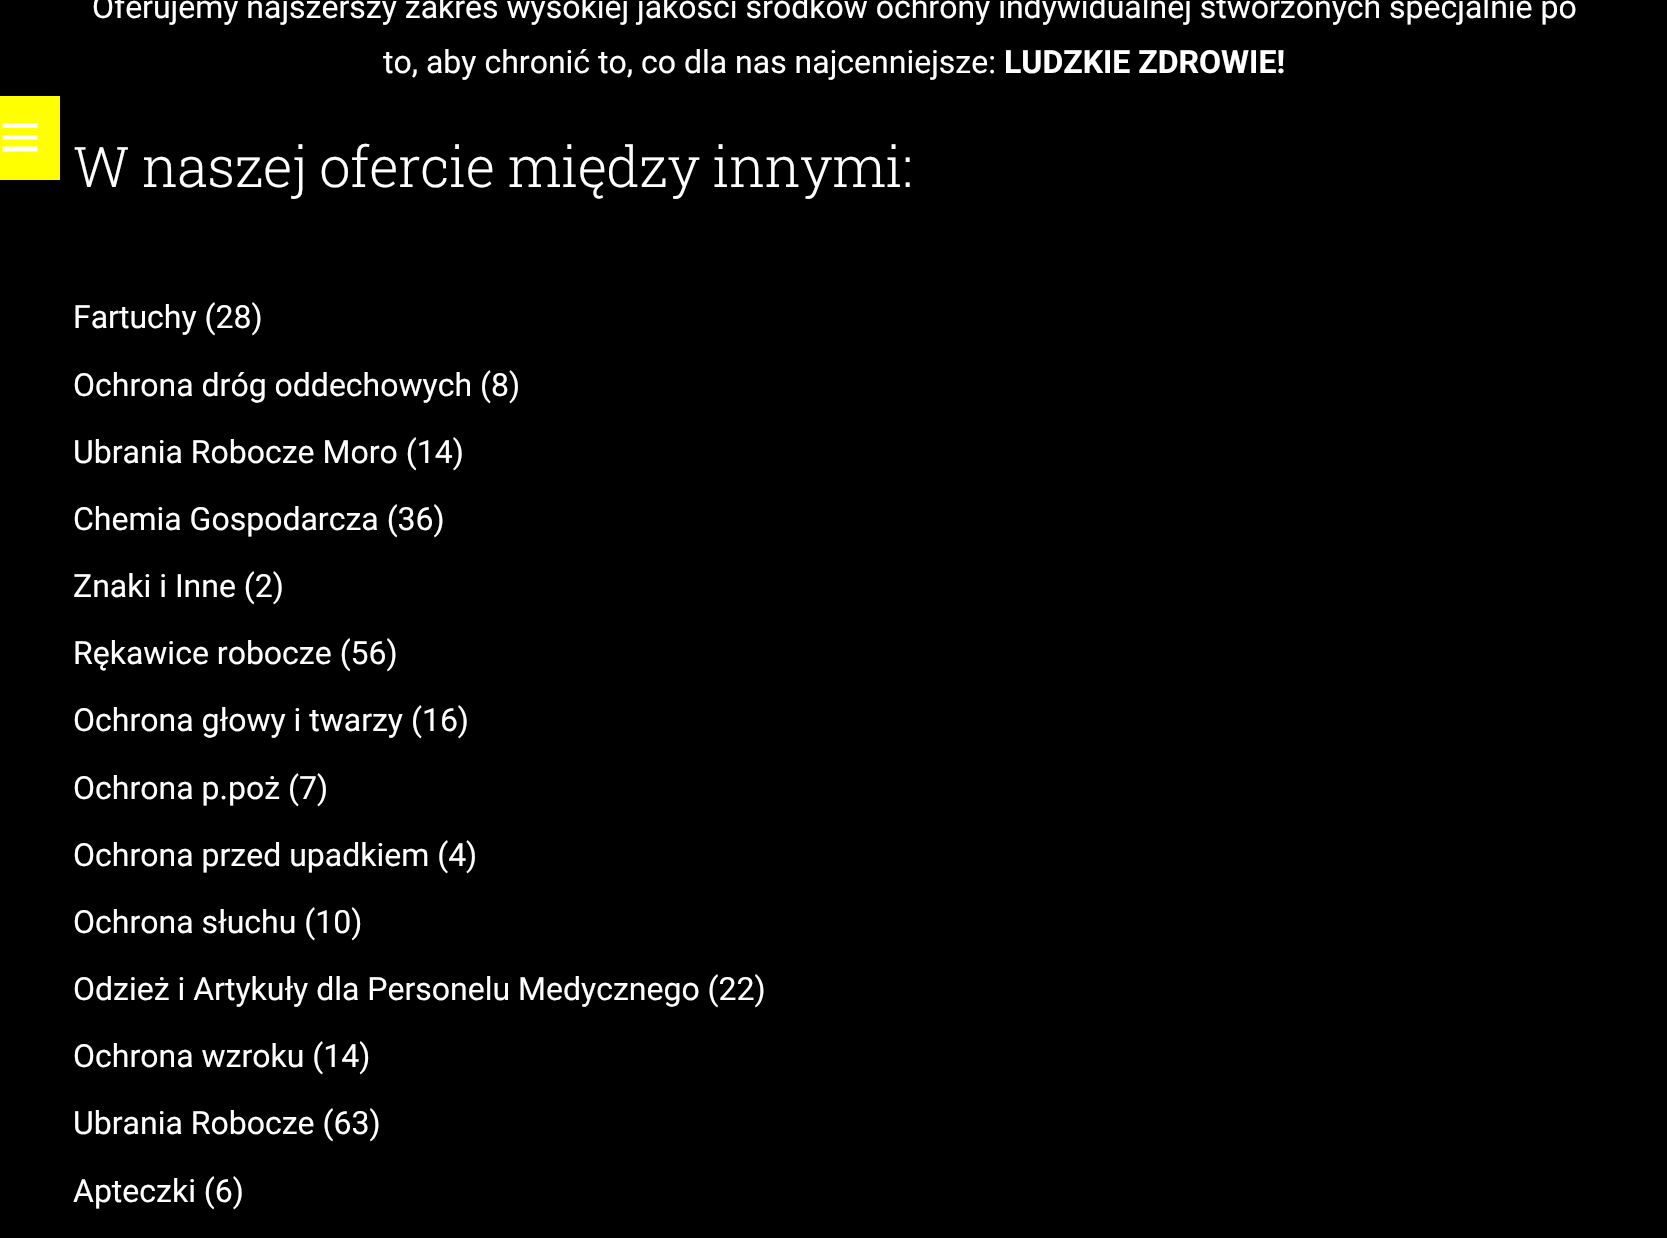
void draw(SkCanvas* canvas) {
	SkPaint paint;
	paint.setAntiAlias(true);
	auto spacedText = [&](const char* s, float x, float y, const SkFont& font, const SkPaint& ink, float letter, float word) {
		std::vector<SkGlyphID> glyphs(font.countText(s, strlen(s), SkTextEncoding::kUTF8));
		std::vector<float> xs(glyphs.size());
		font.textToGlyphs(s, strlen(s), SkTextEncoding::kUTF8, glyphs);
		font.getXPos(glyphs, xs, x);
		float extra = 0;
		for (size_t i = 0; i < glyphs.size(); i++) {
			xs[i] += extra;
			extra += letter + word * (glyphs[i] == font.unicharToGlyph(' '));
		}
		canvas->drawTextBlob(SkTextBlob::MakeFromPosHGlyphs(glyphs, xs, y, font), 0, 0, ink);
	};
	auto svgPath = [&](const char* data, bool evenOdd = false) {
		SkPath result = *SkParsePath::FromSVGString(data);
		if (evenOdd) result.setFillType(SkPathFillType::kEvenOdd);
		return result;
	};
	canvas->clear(0xff000000);
	paint.setColor(0xffffff00);
	canvas->drawRect(SkRect::MakeXYWH(0, 96, 60, 84), paint);
	paint.setColor(0xffffffff);
	canvas->drawPath(svgPath("M37.5 123V128H2.5V123ZM2.5 139.5H37.5V135H2.5ZM2.5 151.5H37.5V146.5H2.5Z"), paint);
	SkFont f1(fontMgr->matchFamilyStyle("Roboto", SkFontStyle::Normal()), 32);
	f1.setSubpixel(true);
	canvas->drawString("Oferujemy najszerszy zakres wysokiej jakości środków ochrony indywidualnej stworzonych specjalnie po", 92, 18, f1, paint);
	canvas->drawString("to, aby chronić to, co dla nas najcenniejsze:", 383, 73, f1, paint);
	SkFont f2(fontMgr->matchFamilyStyle("Roboto", SkFontStyle::Bold()), 32);
	f2.setSubpixel(true);
	canvas->drawString("LUDZKIE ZDROWIE!", 1004, 73, f2, paint);
	SkFont f3(fontMgr->matchFamilyStyle("Roboto Slab", SkFontStyle(300, SkFontStyle::kNormal_Width, SkFontStyle::kUpright_Slant)), 56);
	f3.setSubpixel(true);
	spacedText("W naszej ofercie między innymi:", 73, 187, f3, paint, -0.55, 0);
	canvas->drawString("Fartuchy (28)", 73, 328, f1, paint);
	canvas->drawString("Ochrona dróg oddechowych (8)", 73, 396, f1, paint);
	canvas->drawString("Ubrania Robocze Moro (14)", 73, 463, f1, paint);
	canvas->drawString("Chemia Gospodarcza (36)", 73, 530, f1, paint);
	canvas->drawString("Znaki i Inne (2)", 73, 597, f1, paint);
	canvas->drawString("Rękawice robocze (56)", 73, 664, f1, paint);
	canvas->drawString("Ochrona głowy i twarzy (16)", 73, 731, f1, paint);
	canvas->drawString("Ochrona p.poż (7)", 73, 799, f1, paint);
	canvas->drawString("Ochrona przed upadkiem (4)", 73, 866, f1, paint);
	canvas->drawString("Ochrona słuchu (10)", 73, 933, f1, paint);
	canvas->drawString("Odzież i Artykuły dla Personelu Medycznego (22)", 73, 1000, f1, paint);
	canvas->drawString("Ochrona wzroku (14)", 73, 1067, f1, paint);
	canvas->drawString("Ubrania Robocze (63)", 73, 1134, f1, paint);
	canvas->drawString("Apteczki (6)", 73, 1202, f1, paint);
}
